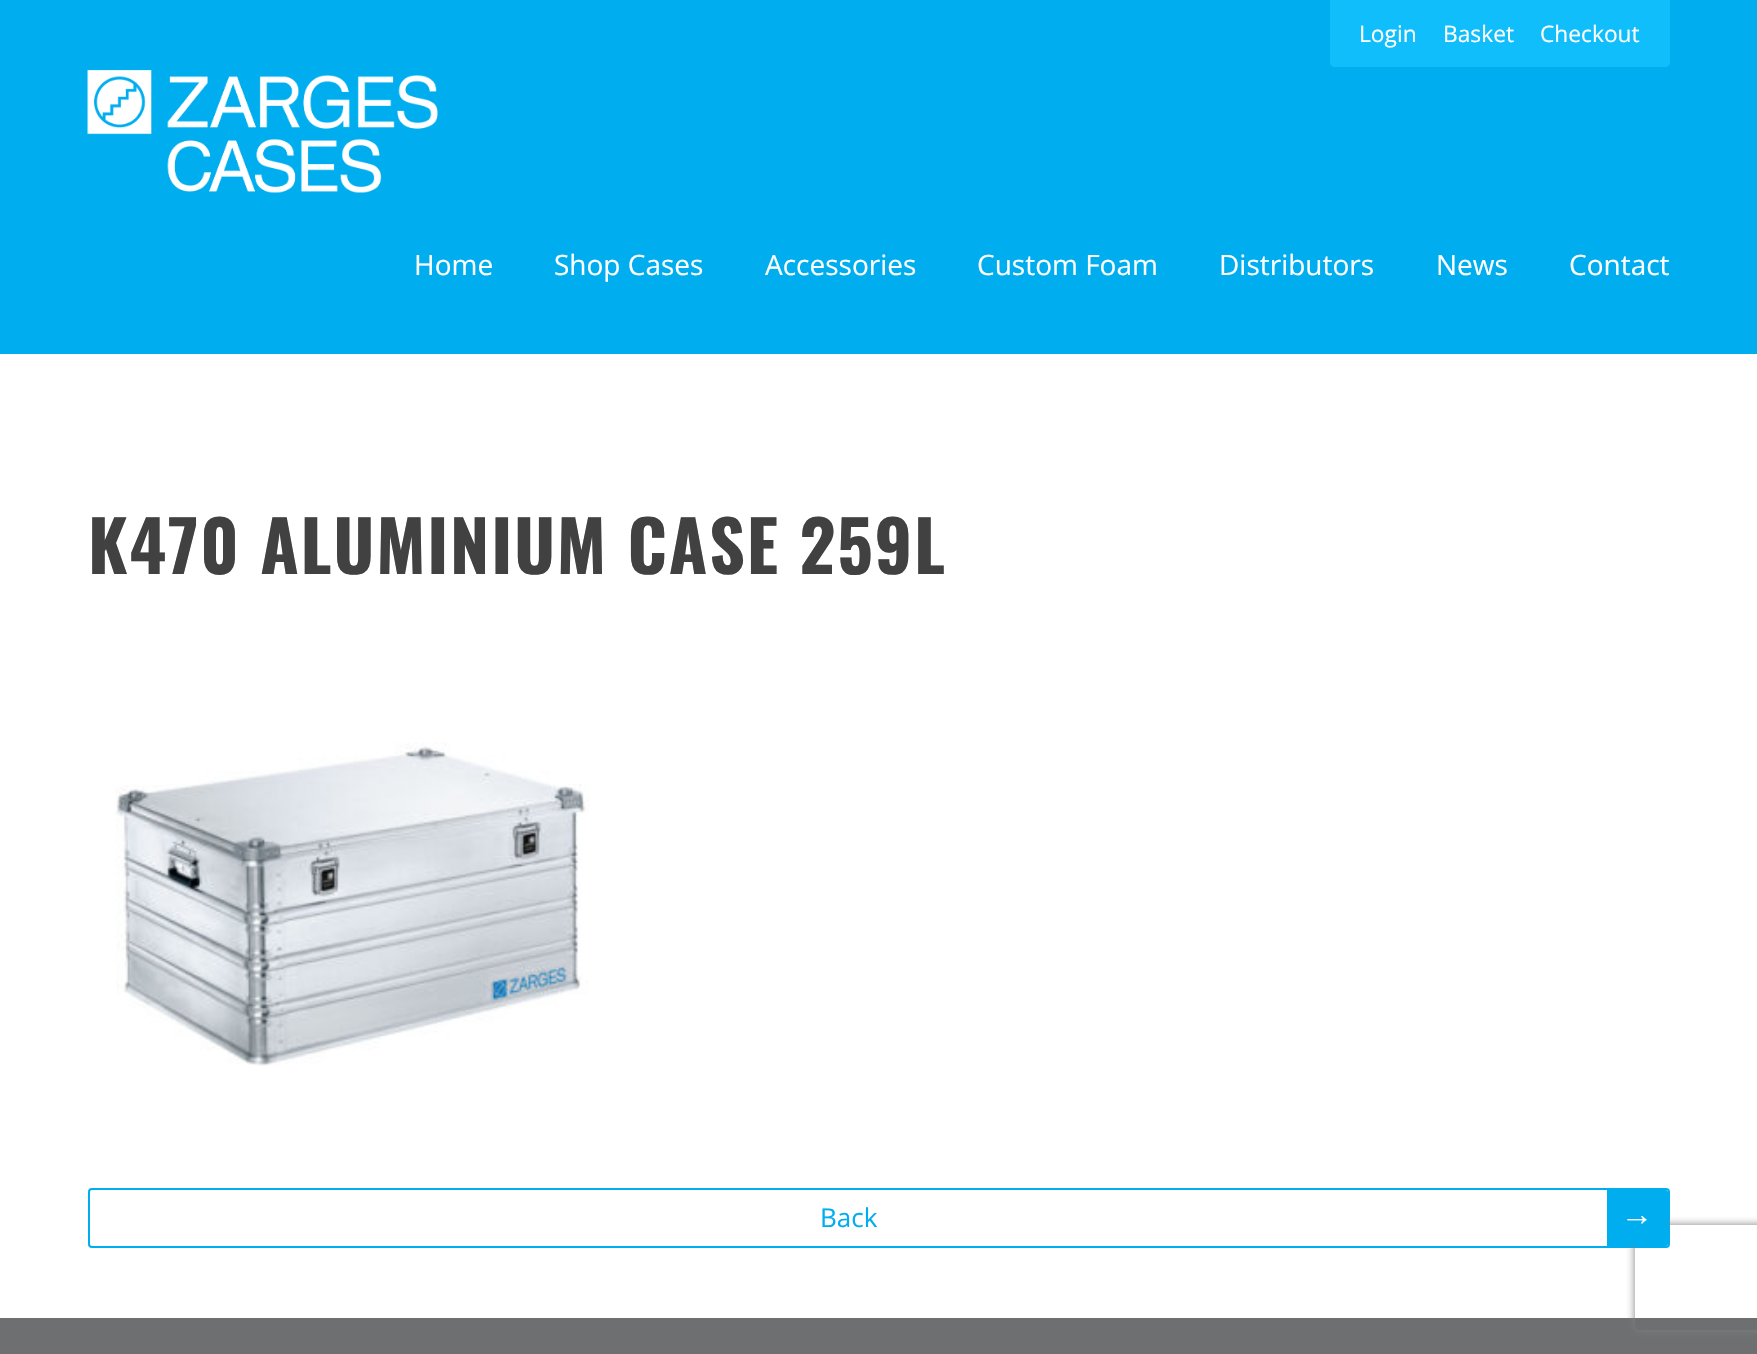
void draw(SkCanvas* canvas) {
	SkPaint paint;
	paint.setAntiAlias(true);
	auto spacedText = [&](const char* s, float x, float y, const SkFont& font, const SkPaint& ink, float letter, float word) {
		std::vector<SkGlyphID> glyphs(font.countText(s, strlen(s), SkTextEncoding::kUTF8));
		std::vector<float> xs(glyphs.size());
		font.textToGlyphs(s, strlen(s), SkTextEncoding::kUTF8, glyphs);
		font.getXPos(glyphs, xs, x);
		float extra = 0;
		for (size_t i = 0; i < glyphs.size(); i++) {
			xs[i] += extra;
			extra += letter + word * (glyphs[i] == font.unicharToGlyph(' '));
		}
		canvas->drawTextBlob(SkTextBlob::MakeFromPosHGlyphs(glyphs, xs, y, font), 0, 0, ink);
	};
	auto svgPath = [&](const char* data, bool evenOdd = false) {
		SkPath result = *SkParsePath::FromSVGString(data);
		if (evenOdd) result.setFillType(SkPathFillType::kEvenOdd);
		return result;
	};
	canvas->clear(0xffffffff);
	paint.setColor(0xff00aeef);
	canvas->drawRect(SkRect::MakeXYWH(0, 0, 1757, 354), paint);
	paint.setColor(0xff10befc);
	canvas->drawPath(svgPath("M1330 0H1670V62C1670 65 1668 67 1665 67H1335C1332 67 1330 65 1330 62Z"), paint);
	SkFont f1(fontMgr->matchFamilyStyle("Open Sans", SkFontStyle::Normal()), 22.75);
	f1.setSubpixel(true);
	paint.setColor(0xffffffff);
	canvas->drawString("Login", 1359, 42, f1, paint);
	canvas->drawString("Basket", 1443, 42, f1, paint);
	canvas->drawString("Checkout", 1540, 42, f1, paint);
	canvas->drawImageRect(SkImages::DeferredFromEncodedData(SkData::MakeFromFileName("img1.png")), SkRect::MakeXYWH(87, 70, 351, 123), SkSamplingOptions());
	SkFont f2(fontMgr->matchFamilyStyle("Open Sans", SkFontStyle::Normal()), 28);
	f2.setSubpixel(true);
	canvas->drawString("Home", 414, 275, f2, paint);
	canvas->drawString("Shop Cases", 554, 275, f2, paint);
	canvas->drawString("Accessories", 765, 275, f2, paint);
	canvas->drawString("Custom Foam", 977, 275, f2, paint);
	canvas->drawString("Distributors", 1219, 275, f2, paint);
	canvas->drawString("News", 1436, 275, f2, paint);
	canvas->drawString("Contact", 1569, 275, f2, paint);
	SkFont f3(fontMgr->matchFamilyStyle("Oswald", SkFontStyle::Bold()), 70);
	f3.setSubpixel(true);
	paint.setColor(0xff414141);
	spacedText("K470 ALUMINIUM CASE 259L", 88, 574, f3, paint, 1.75, 0);
	canvas->drawImageRect(SkImages::DeferredFromEncodedData(SkData::MakeFromFileName("img2.png")), SkRect::MakeXYWH(115, 742, 474, 324), SkSamplingOptions());
	paint.setStroke(true);
	paint.setStrokeWidth(2);
	paint.setColor(0xff00aeef);
	canvas->drawRoundRect(SkRect::MakeXYWH(89, 1189, 1580, 58), 3, 3, paint);
	SkFont f4(fontMgr->matchFamilyStyle("Open Sans", SkFontStyle::Normal()), 26);
	f4.setSubpixel(true);
	paint.setStroke(false);
	canvas->drawString("Back", 820, 1227, f4, paint);
	paint.setColor(0xff6d6f71);
	canvas->drawRect(SkRect::MakeXYWH(0, 1318, 1757, 36), paint);
	canvas->save();
	canvas->clipPath(svgPath("M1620 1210H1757V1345H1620ZM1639 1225H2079C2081 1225 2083 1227 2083 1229V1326C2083 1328 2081 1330 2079 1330H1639C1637 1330 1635 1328 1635 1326V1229C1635 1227 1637 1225 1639 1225Z", true), true);
	paint.setColor(0xff808080);
	paint.setMaskFilter(SkMaskFilter::MakeBlur(kNormal_SkBlurStyle, 4.5));
	canvas->drawRoundRect(SkRect::MakeXYWH(1635, 1225, 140, 105), 4, 4, paint);
	paint.setMaskFilter(nullptr);
	canvas->restore();
	paint.setColor(0xff00aeef);
	canvas->drawPath(svgPath("M1607 1190H1666C1667 1190 1668 1191 1668 1192V1244C1668 1245 1667 1246 1666 1246H1607Z"), paint);
	SkFont f5(fontMgr->matchFamilyStyle("Liberation Sans", SkFontStyle::Normal()), 32);
	f5.setSubpixel(true);
	paint.setColor(0xffffffff);
	canvas->drawString("→", 1621, 1225, f5, paint);
}
